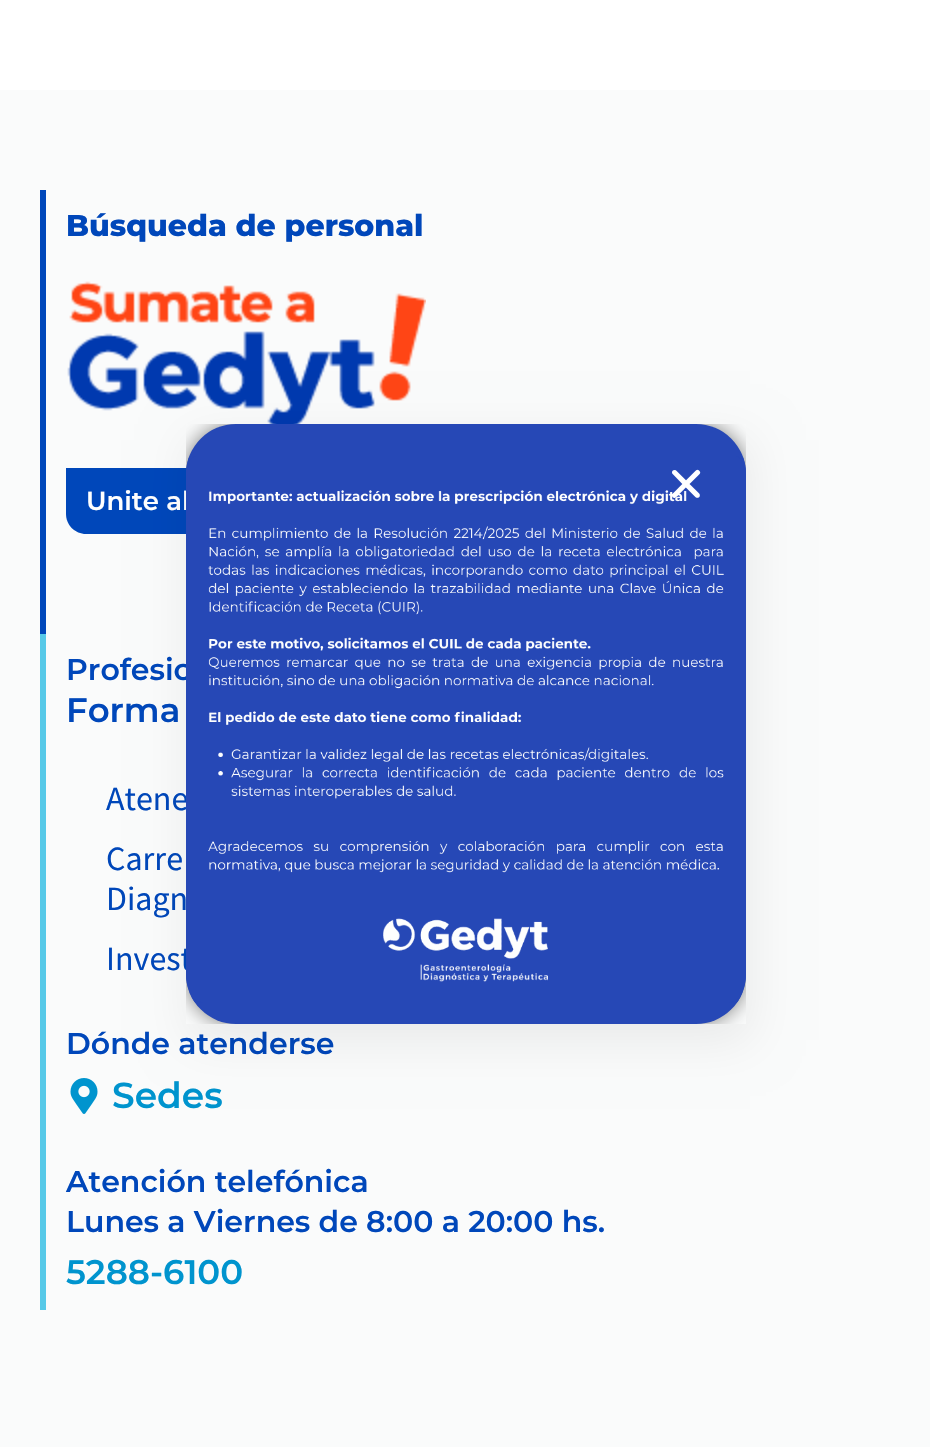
void draw(SkCanvas* canvas) {
	SkPaint paint;
	paint.setAntiAlias(true);
	auto svgPath = [&](const char* data, bool evenOdd = false) {
		SkPath result = *SkParsePath::FromSVGString(data);
		if (evenOdd) result.setFillType(SkPathFillType::kEvenOdd);
		return result;
	};
	canvas->clear(0xffffffff);
	paint.setColor(0xfffafbfb);
	canvas->drawRect(SkRect::MakeXYWH(0, 90, 930, 1357), paint);
	paint.setColor(0xff0047ba);
	canvas->drawRect(SkRect::MakeXYWH(40, 190, 6, 444), paint);
	SkFont f1(fontMgr->matchFamilyStyle("Montserrat", SkFontStyle(800, SkFontStyle::kNormal_Width, SkFontStyle::kUpright_Slant)), 30);
	f1.setSubpixel(true);
	canvas->drawString("Búsqueda de personal", 66, 236, f1, paint);
	canvas->drawImageRect(SkImages::DeferredFromEncodedData(SkData::MakeFromFileName("img1.png")), SkRect::MakeXYWH(67, 281, 359, 143), SkSamplingOptions());
	canvas->drawPath(svgPath("M66 468H290C301 468 310 477 310 488V514C310 525 301 534 290 534H86C75 534 66 525 66 514Z"), paint);
	SkFont f2(fontMgr->matchFamilyStyle("Montserrat", SkFontStyle(600, SkFontStyle::kNormal_Width, SkFontStyle::kUpright_Slant)), 26);
	f2.setSubpixel(true);
	paint.setColor(0xffffffff);
	canvas->drawString("Unite al", 86, 510, f2, paint);
	paint.setColor(0xff57c9e8);
	canvas->drawRect(SkRect::MakeXYWH(40, 634, 6, 676), paint);
	SkFont f3(fontMgr->matchFamilyStyle("Montserrat", SkFontStyle(600, SkFontStyle::kNormal_Width, SkFontStyle::kUpright_Slant)), 30);
	f3.setSubpixel(true);
	paint.setColor(0xff0047ba);
	canvas->drawString("Profesio", 66, 680, f3, paint);
	SkFont f4(fontMgr->matchFamilyStyle("Montserrat", SkFontStyle(600, SkFontStyle::kNormal_Width, SkFontStyle::kUpright_Slant)), 34);
	f4.setSubpixel(true);
	canvas->drawString("Forma", 66, 722, f4, paint);
	SkFont f5(fontMgr->matchFamilyStyle("Source Sans Pro", SkFontStyle::Normal()), 34);
	f5.setSubpixel(true);
	canvas->drawString("Atene", 106, 810, f5, paint);
	canvas->drawString("Carre", 106, 870, f5, paint);
	canvas->drawString("Diagn", 106, 910, f5, paint);
	canvas->drawString("Invest", 106, 970, f5, paint);
	canvas->drawString("Dónde atenderse", 66, 1054, f3, paint);
	canvas->drawImageRect(SkImages::DeferredFromEncodedData(SkData::MakeFromFileName("img2.png")), SkRect::MakeXYWH(70, 1078, 28, 36), SkSamplingOptions());
	SkFont f6(fontMgr->matchFamilyStyle("Montserrat", SkFontStyle(600, SkFontStyle::kNormal_Width, SkFontStyle::kUpright_Slant)), 36);
	f6.setSubpixel(true);
	paint.setColor(0xff0094ce);
	canvas->drawString("Sedes", 112, 1108, f6, paint);
	paint.setColor(0xff0047ba);
	canvas->drawString("Atención telefónica", 66, 1192, f3, paint);
	canvas->drawString("Lunes a Viernes de 8:00 a 20:00 hs.", 66, 1232, f3, paint);
	paint.setColor(0xff0094ce);
	canvas->drawString("5288-6100", 66, 1284, f4, paint);
	canvas->save();
	canvas->clipPath(svgPath("M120 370H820V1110H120ZM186 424H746V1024H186Z", true), true);
	paint.setColor(0x12000000);
	paint.setMaskFilter(SkMaskFilter::MakeBlur(kNormal_SkBlurStyle, 23));
	canvas->drawRect(SkRect::MakeXYWH(190, 440, 560, 600), paint);
	paint.setMaskFilter(nullptr);
	canvas->restore();
	canvas->save();
	canvas->clipRect(SkRect::MakeXYWH(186, 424, 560, 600));
	paint.setColor(0x80000000);
	paint.setMaskFilter(SkMaskFilter::MakeBlur(kNormal_SkBlurStyle, 10));
	canvas->drawRoundRect(SkRect::MakeXYWH(186, 424, 560, 600), 50, 50, paint);
	paint.setMaskFilter(nullptr);
	canvas->restore();
	paint.setColor(0xff2648b6);
	canvas->drawRoundRect(SkRect::MakeXYWH(186, 424, 560, 600), 50, 50, paint);
	canvas->drawImageRect(SkImages::DeferredFromEncodedData(SkData::MakeFromFileName("img3.png")), SkRect::MakeXYWH(186, 456, 560, 547), SkSamplingOptions());
	canvas->drawImageRect(SkImages::DeferredFromEncodedData(SkData::MakeFromFileName("img4.png")), SkRect::MakeXYWH(672, 469, 29, 29), SkSamplingOptions());
}
